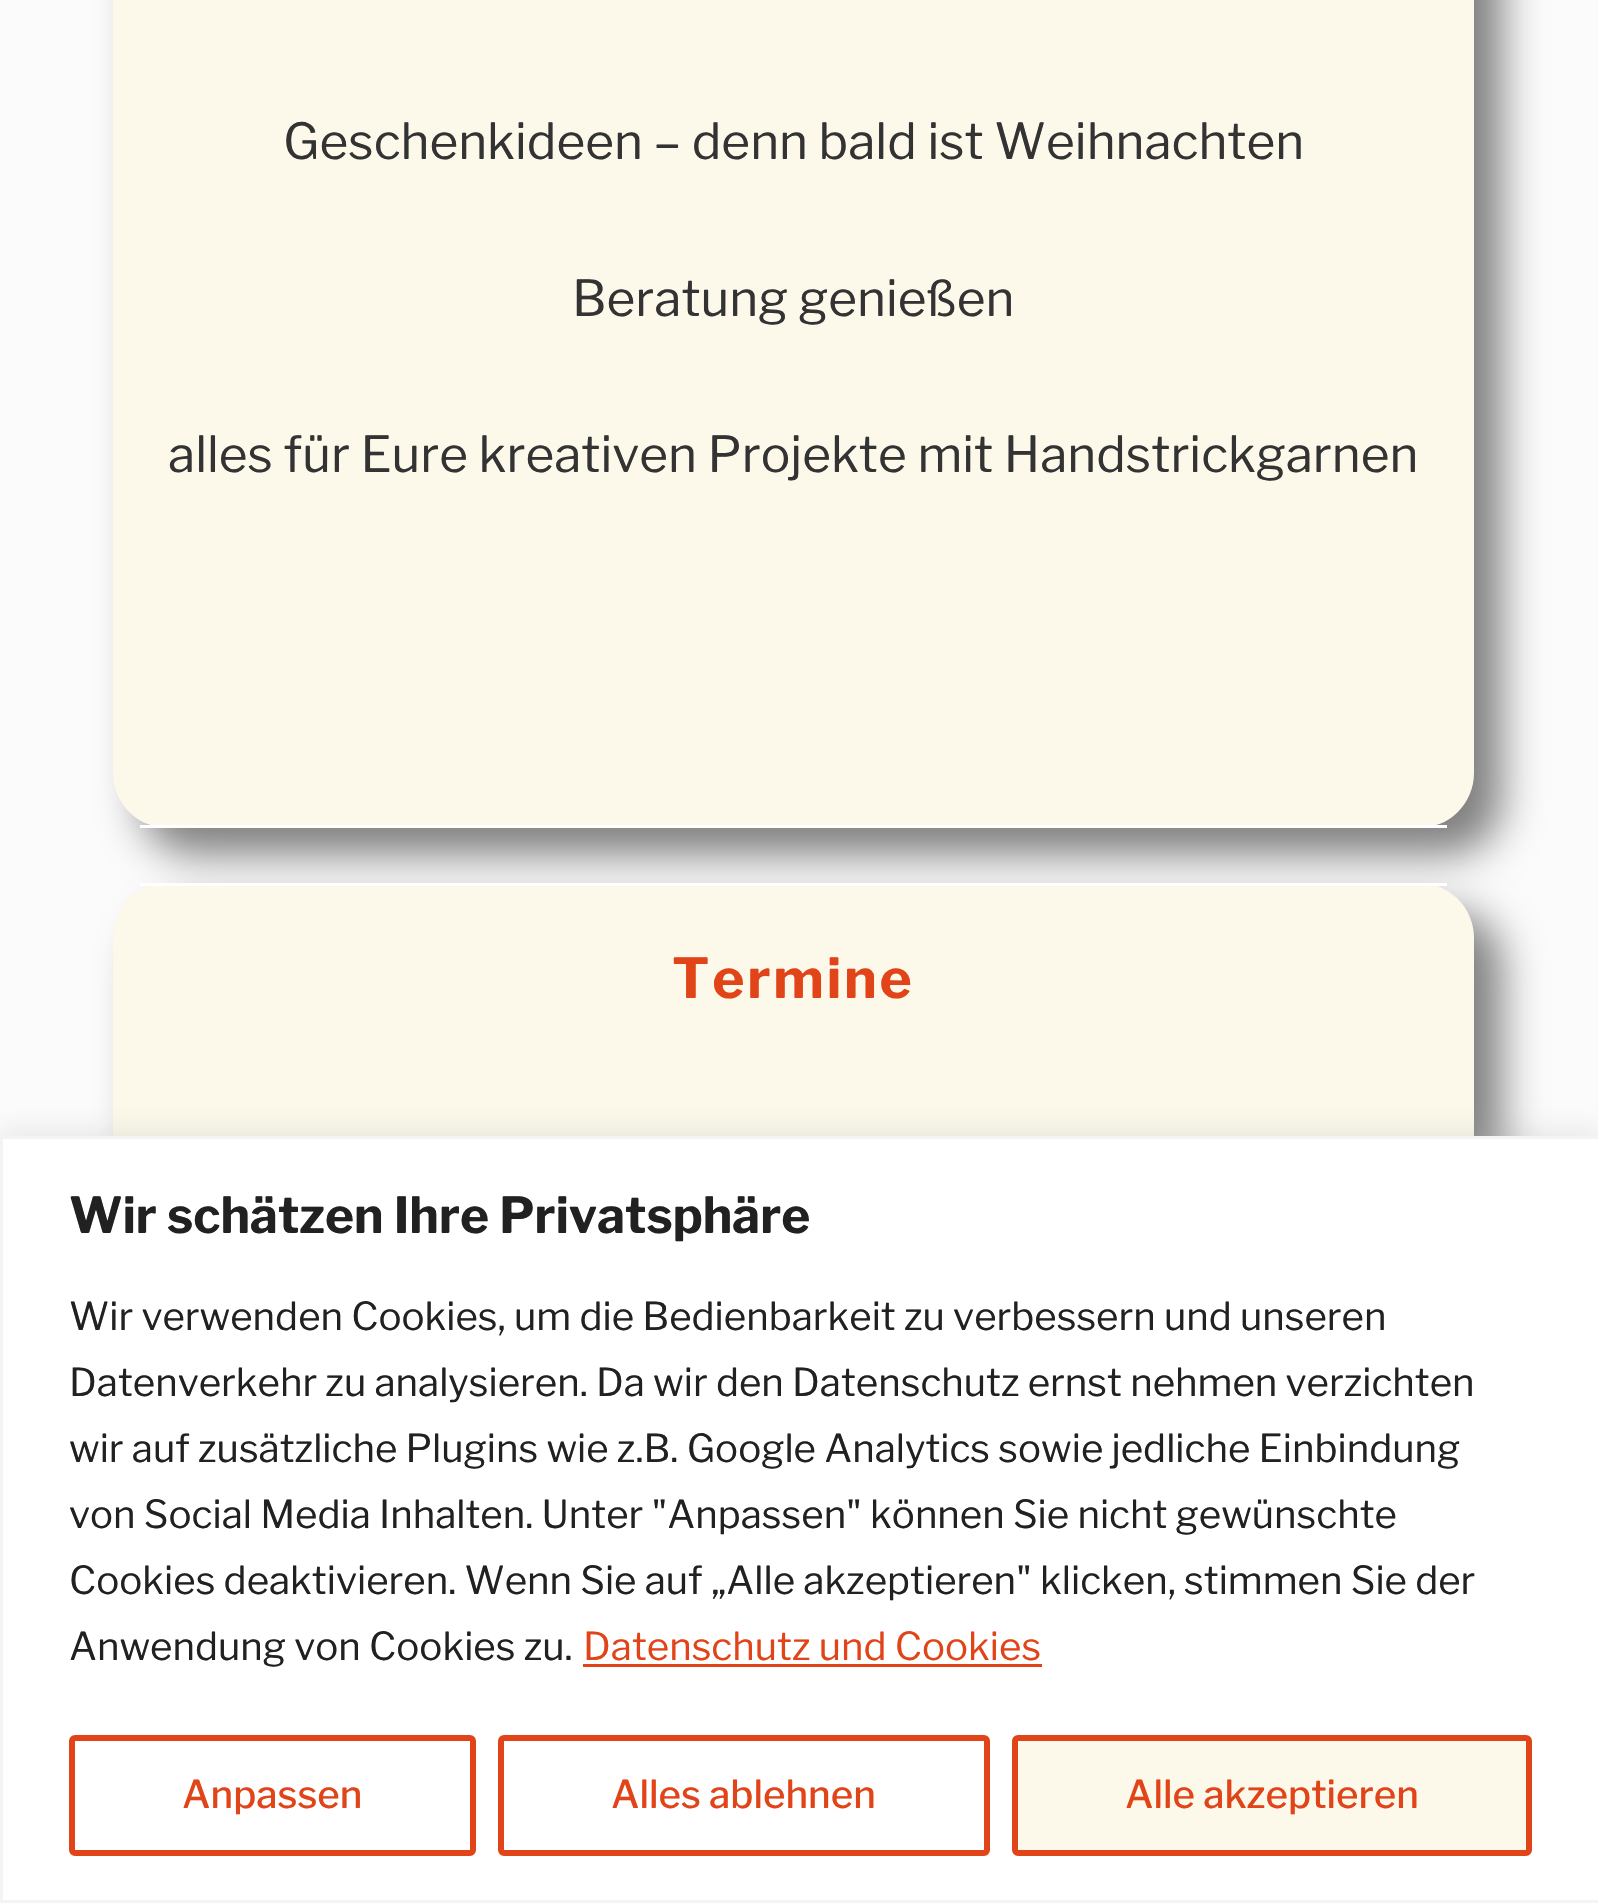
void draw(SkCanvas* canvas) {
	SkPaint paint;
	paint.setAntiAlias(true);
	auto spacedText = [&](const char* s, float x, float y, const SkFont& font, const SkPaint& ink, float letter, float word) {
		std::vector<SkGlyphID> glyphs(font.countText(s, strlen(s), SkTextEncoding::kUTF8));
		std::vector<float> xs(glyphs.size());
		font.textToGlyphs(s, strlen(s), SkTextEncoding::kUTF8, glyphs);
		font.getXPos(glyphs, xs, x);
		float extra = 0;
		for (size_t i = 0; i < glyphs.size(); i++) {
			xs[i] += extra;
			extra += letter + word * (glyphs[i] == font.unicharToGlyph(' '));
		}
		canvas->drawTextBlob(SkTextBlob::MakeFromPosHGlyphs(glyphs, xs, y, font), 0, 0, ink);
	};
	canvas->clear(0xfffbfbfb);
	paint.setColor(0xff808080);
	paint.setMaskFilter(SkMaskFilter::MakeBlur(kNormal_SkBlurStyle, 20.5));
	canvas->drawRoundRect(SkRect::MakeXYWH(140, -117, 1362, 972), 55, 55, paint);
	paint.setMaskFilter(nullptr);
	paint.setColor(0xfffcf9ea);
	canvas->drawRoundRect(SkRect::MakeXYWH(113, -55, 1361, 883), 55, 55, paint);
	paint.setColor(0xffffffff);
	canvas->drawRect(SkRect::MakeXYWH(140, 825, 1307, 3), paint);
	SkFont f1(fontMgr->matchFamilyStyle("Libre Franklin", SkFontStyle::Normal()), 49.5);
	f1.setSubpixel(true);
	paint.setColor(0xff333333);
	canvas->drawString("Geschenkideen – denn bald ist Weihnachten", 283, 159, f1, paint);
	canvas->drawString("Beratung genießen", 572, 316, f1, paint);
	canvas->drawString("alles für Eure kreativen Projekte mit Handstrickgarnen", 168, 472, f1, paint);
	paint.setColor(0xff808080);
	paint.setMaskFilter(SkMaskFilter::MakeBlur(kNormal_SkBlurStyle, 20.5));
	canvas->drawRoundRect(SkRect::MakeXYWH(140, 910, 1362, 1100), 55, 55, paint);
	paint.setMaskFilter(nullptr);
	paint.setColor(0xfffcf9ea);
	canvas->drawRoundRect(SkRect::MakeXYWH(113, 883, 1361, 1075), 55, 55, paint);
	paint.setColor(0xffffffff);
	canvas->drawRect(SkRect::MakeXYWH(140, 883, 1307, 3), paint);
	SkFont f2(fontMgr->matchFamilyStyle("Libre Franklin", SkFontStyle::Bold()), 55);
	f2.setSubpixel(true);
	paint.setColor(0xffe14418);
	spacedText("Termine", 672, 998, f2, paint, 2.75, 0);
	paint.setColor(0x4dacabab);
	paint.setMaskFilter(SkMaskFilter::MakeBlur(kNormal_SkBlurStyle, 14));
	canvas->drawRect(SkRect::MakeXYWH(0, 1133, 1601, 767), paint);
	paint.setMaskFilter(nullptr);
	paint.setColor(0xffffffff);
	canvas->drawRect(SkRect::MakeXYWH(1.5, 1137.5, 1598, 764), paint);
	paint.setStroke(true);
	paint.setStrokeWidth(3);
	paint.setColor(0xfff4f4f4);
	canvas->drawRect(SkRect::MakeXYWH(1.5, 1137.5, 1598, 764), paint);
	SkFont f3(fontMgr->matchFamilyStyle("Libre Franklin", SkFontStyle::Bold()), 49.5);
	f3.setSubpixel(true);
	paint.setStroke(false);
	paint.setColor(0xff212121);
	canvas->drawString("Wir schätzen Ihre Privatsphäre", 69, 1233, f3, paint);
	SkFont f4(fontMgr->matchFamilyStyle("Libre Franklin", SkFontStyle::Normal()), 38.5);
	f4.setSubpixel(true);
	canvas->drawString("Wir verwenden Cookies, um die Bedienbarkeit zu verbessern und unseren", 69, 1330, f4, paint);
	canvas->drawString("Datenverkehr zu analysieren. Da wir den Datenschutz ernst nehmen verzichten", 69, 1396, f4, paint);
	canvas->drawString("wir auf zusätzliche Plugins wie z.B. Google Analytics sowie jedliche Einbindung", 69, 1462, f4, paint);
	canvas->drawString("von Social Media Inhalten. Unter \"Anpassen\" können Sie nicht gewünschte", 69, 1528, f4, paint);
	canvas->drawString("Cookies deaktivieren. Wenn Sie auf „Alle akzeptieren\" klicken, stimmen Sie der", 69, 1594, f4, paint);
	canvas->drawString("Anwendung von Cookies zu.", 69, 1660, f4, paint);
	paint.setColor(0xffe14418);
	canvas->drawString("Datenschutz und Cookies", 583, 1660, f4, paint);
	canvas->drawRect(SkRect::MakeXYWH(583, 1664, 459, 3), paint);
	paint.setStroke(true);
	paint.setStrokeWidth(6);
	canvas->drawRoundRect(SkRect::MakeXYWH(72, 1738, 401, 115), 3, 3, paint);
	SkFont f5(fontMgr->matchFamilyStyle("Libre Franklin", SkFontStyle(500, SkFontStyle::kNormal_Width, SkFontStyle::kUpright_Slant)), 38.5);
	f5.setSubpixel(true);
	paint.setStroke(false);
	canvas->drawString("Anpassen", 182, 1808, f5, paint);
	paint.setStroke(true);
	canvas->drawRoundRect(SkRect::MakeXYWH(501, 1738, 486, 115), 3, 3, paint);
	paint.setStroke(false);
	canvas->drawString("Alles ablehnen", 611, 1808, f5, paint);
	paint.setColor(0xfffcf9ea);
	canvas->drawRoundRect(SkRect::MakeXYWH(1015, 1738, 514, 115), 3, 3, paint);
	paint.setStroke(true);
	paint.setColor(0xffe14418);
	canvas->drawRoundRect(SkRect::MakeXYWH(1015, 1738, 514, 115), 3, 3, paint);
	paint.setStroke(false);
	canvas->drawString("Alle akzeptieren", 1125, 1808, f5, paint);
}
